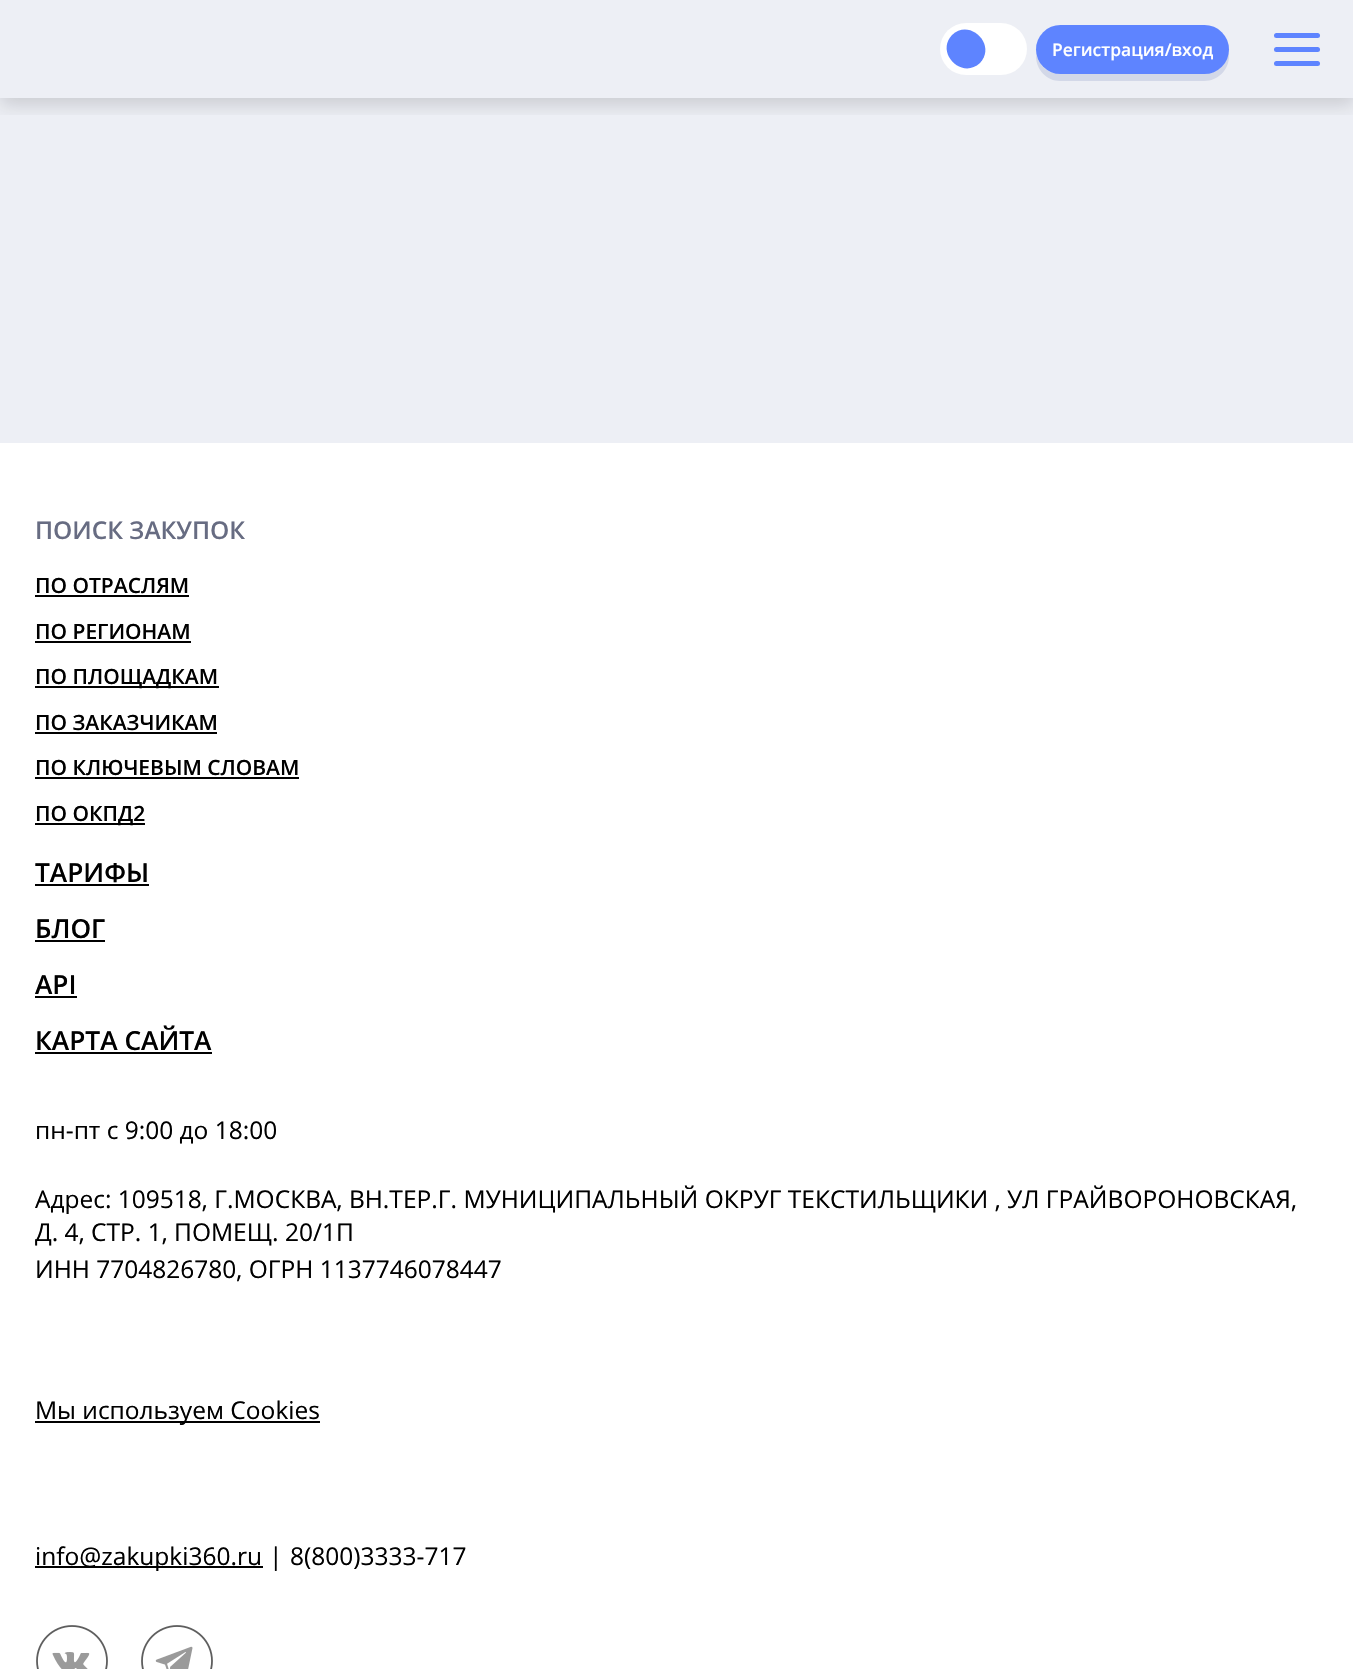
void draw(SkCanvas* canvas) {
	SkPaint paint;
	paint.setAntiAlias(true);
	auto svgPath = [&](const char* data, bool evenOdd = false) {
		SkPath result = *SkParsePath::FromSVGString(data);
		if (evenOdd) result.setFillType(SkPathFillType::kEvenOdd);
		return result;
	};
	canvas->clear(0xffedeff5);
	canvas->save();
	canvas->clipRect(SkRect::MakeXYWH(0, 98, 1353, 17));
	paint.setColor(0x26000000);
	paint.setMaskFilter(SkMaskFilter::MakeBlur(kNormal_SkBlurStyle, 9));
	canvas->drawRect(SkRect::MakeXYWH(0, 7, 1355, 98), paint);
	paint.setMaskFilter(nullptr);
	canvas->restore();
	paint.setColor(0xffffffff);
	canvas->drawRoundRect(SkRect::MakeXYWH(940, 23, 87, 52), 26, 26, paint);
	paint.setColor(0xff5e84ff);
	canvas->drawPath(svgPath("M952 35C970 18 997 45 980 63C962 80 935 53 952 35Z"), paint);
	paint.setColor(0xffd3d8e8);
	canvas->drawPath(svgPath("M1036 53V56C1036 70 1047 81 1060 81H1204C1218 81 1229 70 1229 56L1228 51C1227 64 1217 74 1204 74H1060C1048 74 1038 65 1036 53Z"), paint);
	paint.setColor(0xff5e84ff);
	canvas->drawRoundRect(SkRect::MakeXYWH(1036, 25, 193, 49), 24.5, 24.5, paint);
	SkFont f1(fontMgr->matchFamilyStyle("Open Sans", SkFontStyle(600, SkFontStyle::kNormal_Width, SkFontStyle::kUpright_Slant)), 17.5);
	f1.setSubpixel(true);
	paint.setColor(0xffffffff);
	canvas->drawString("Регистрация/вход", 1052, 56, f1, paint);
	paint.setColor(0xff5e84ff);
	canvas->drawRoundRect(SkRect::MakeXYWH(1274, 33, 46, 5), 2.5, 2.5, paint);
	canvas->drawRoundRect(SkRect::MakeXYWH(1274, 47, 46, 5), 2.5, 2.5, paint);
	canvas->drawRoundRect(SkRect::MakeXYWH(1274, 61, 46, 5), 2.5, 2.5, paint);
	paint.setColor(0xffffffff);
	canvas->drawRect(SkRect::MakeXYWH(0, 443, 1353, 1226), paint);
	SkFont f2(fontMgr->matchFamilyStyle("Open Sans", SkFontStyle(600, SkFontStyle::kNormal_Width, SkFontStyle::kUpright_Slant)), 24.5);
	f2.setSubpixel(true);
	paint.setColor(0xff676c82);
	canvas->drawString("ПОИСК ЗАКУПОК", 35, 539, f2, paint);
	SkFont f3(fontMgr->matchFamilyStyle("Open Sans", SkFontStyle(600, SkFontStyle::kNormal_Width, SkFontStyle::kUpright_Slant)), 21);
	f3.setSubpixel(true);
	paint.setColor(0xff000000);
	canvas->drawString("ПО ОТРАСЛЯМ", 35, 593, f3, paint);
	canvas->drawRect(SkRect::MakeXYWH(35, 595, 154, 2), paint);
	canvas->drawString("ПО РЕГИОНАМ", 35, 639, f3, paint);
	canvas->drawRect(SkRect::MakeXYWH(35, 641, 156, 2), paint);
	canvas->drawRect(SkRect::MakeXYWH(35, 686, 184, 2), paint);
	canvas->drawString("ПО ПЛОЩАДКАМ", 35, 684, f3, paint);
	canvas->drawString("ПО ЗАКАЗЧИКАМ", 35, 730, f3, paint);
	canvas->drawRect(SkRect::MakeXYWH(35, 732, 182, 2), paint);
	canvas->drawString("ПО КЛЮЧЕВЫМ СЛОВАМ", 35, 775, f3, paint);
	canvas->drawRect(SkRect::MakeXYWH(35, 777, 264, 2), paint);
	canvas->drawRect(SkRect::MakeXYWH(35, 823, 110, 2), paint);
	canvas->drawString("ПО ОКПД2", 35, 821, f3, paint);
	SkFont f4(fontMgr->matchFamilyStyle("Open Sans", SkFontStyle(600, SkFontStyle::kNormal_Width, SkFontStyle::kUpright_Slant)), 26.25);
	f4.setSubpixel(true);
	canvas->drawString("ТАРИФЫ", 35, 882, f4, paint);
	canvas->drawRect(SkRect::MakeXYWH(35, 884, 114, 2), paint);
	canvas->drawString("БЛОГ", 35, 938, f4, paint);
	canvas->drawRect(SkRect::MakeXYWH(35, 940, 70, 2), paint);
	canvas->drawString("API", 35, 994, f4, paint);
	canvas->drawRect(SkRect::MakeXYWH(35, 996, 42, 2), paint);
	canvas->drawString("КАРТА САЙТА", 35, 1050, f4, paint);
	canvas->drawRect(SkRect::MakeXYWH(35, 1052, 177, 2), paint);
	SkFont f5(fontMgr->matchFamilyStyle("Open Sans", SkFontStyle::Normal()), 24.5);
	f5.setSubpixel(true);
	canvas->drawString("пн-пт с 9:00 до 18:00", 35, 1139, f5, paint);
	canvas->drawString("Адрес: 109518, Г.МОСКВА, ВН.ТЕР.Г. МУНИЦИПАЛЬНЫЙ ОКРУГ ТЕКСТИЛЬЩИКИ , УЛ ГРАЙВОРОНОВСКАЯ,", 35, 1208, f5, paint);
	canvas->drawString("Д. 4, СТР. 1, ПОМЕЩ. 20/1П", 35, 1241, f5, paint);
	canvas->drawString("ИНН 7704826780, ОГРН 1137746078447", 35, 1278, f5, paint);
	canvas->drawRect(SkRect::MakeXYWH(35, 1421, 285, 2), paint);
	canvas->drawString("Мы используем Cookies", 35, 1419, f5, paint);
	canvas->drawRect(SkRect::MakeXYWH(35, 1566, 228, 2), paint);
	canvas->drawString("info@zakupki360.ru", 35, 1565, f5, paint);
	canvas->drawString("|", 269, 1565, f5, paint);
	canvas->drawString("8(800)3333-717", 290, 1565, f5, paint);
	canvas->drawImageRect(SkImages::DeferredFromEncodedData(SkData::MakeFromFileName("img1.png")), SkRect::MakeXYWH(36, 1625, 72, 44), SkSamplingOptions());
	canvas->drawImageRect(SkImages::DeferredFromEncodedData(SkData::MakeFromFileName("img2.png")), SkRect::MakeXYWH(141, 1625, 72, 44), SkSamplingOptions());
}
